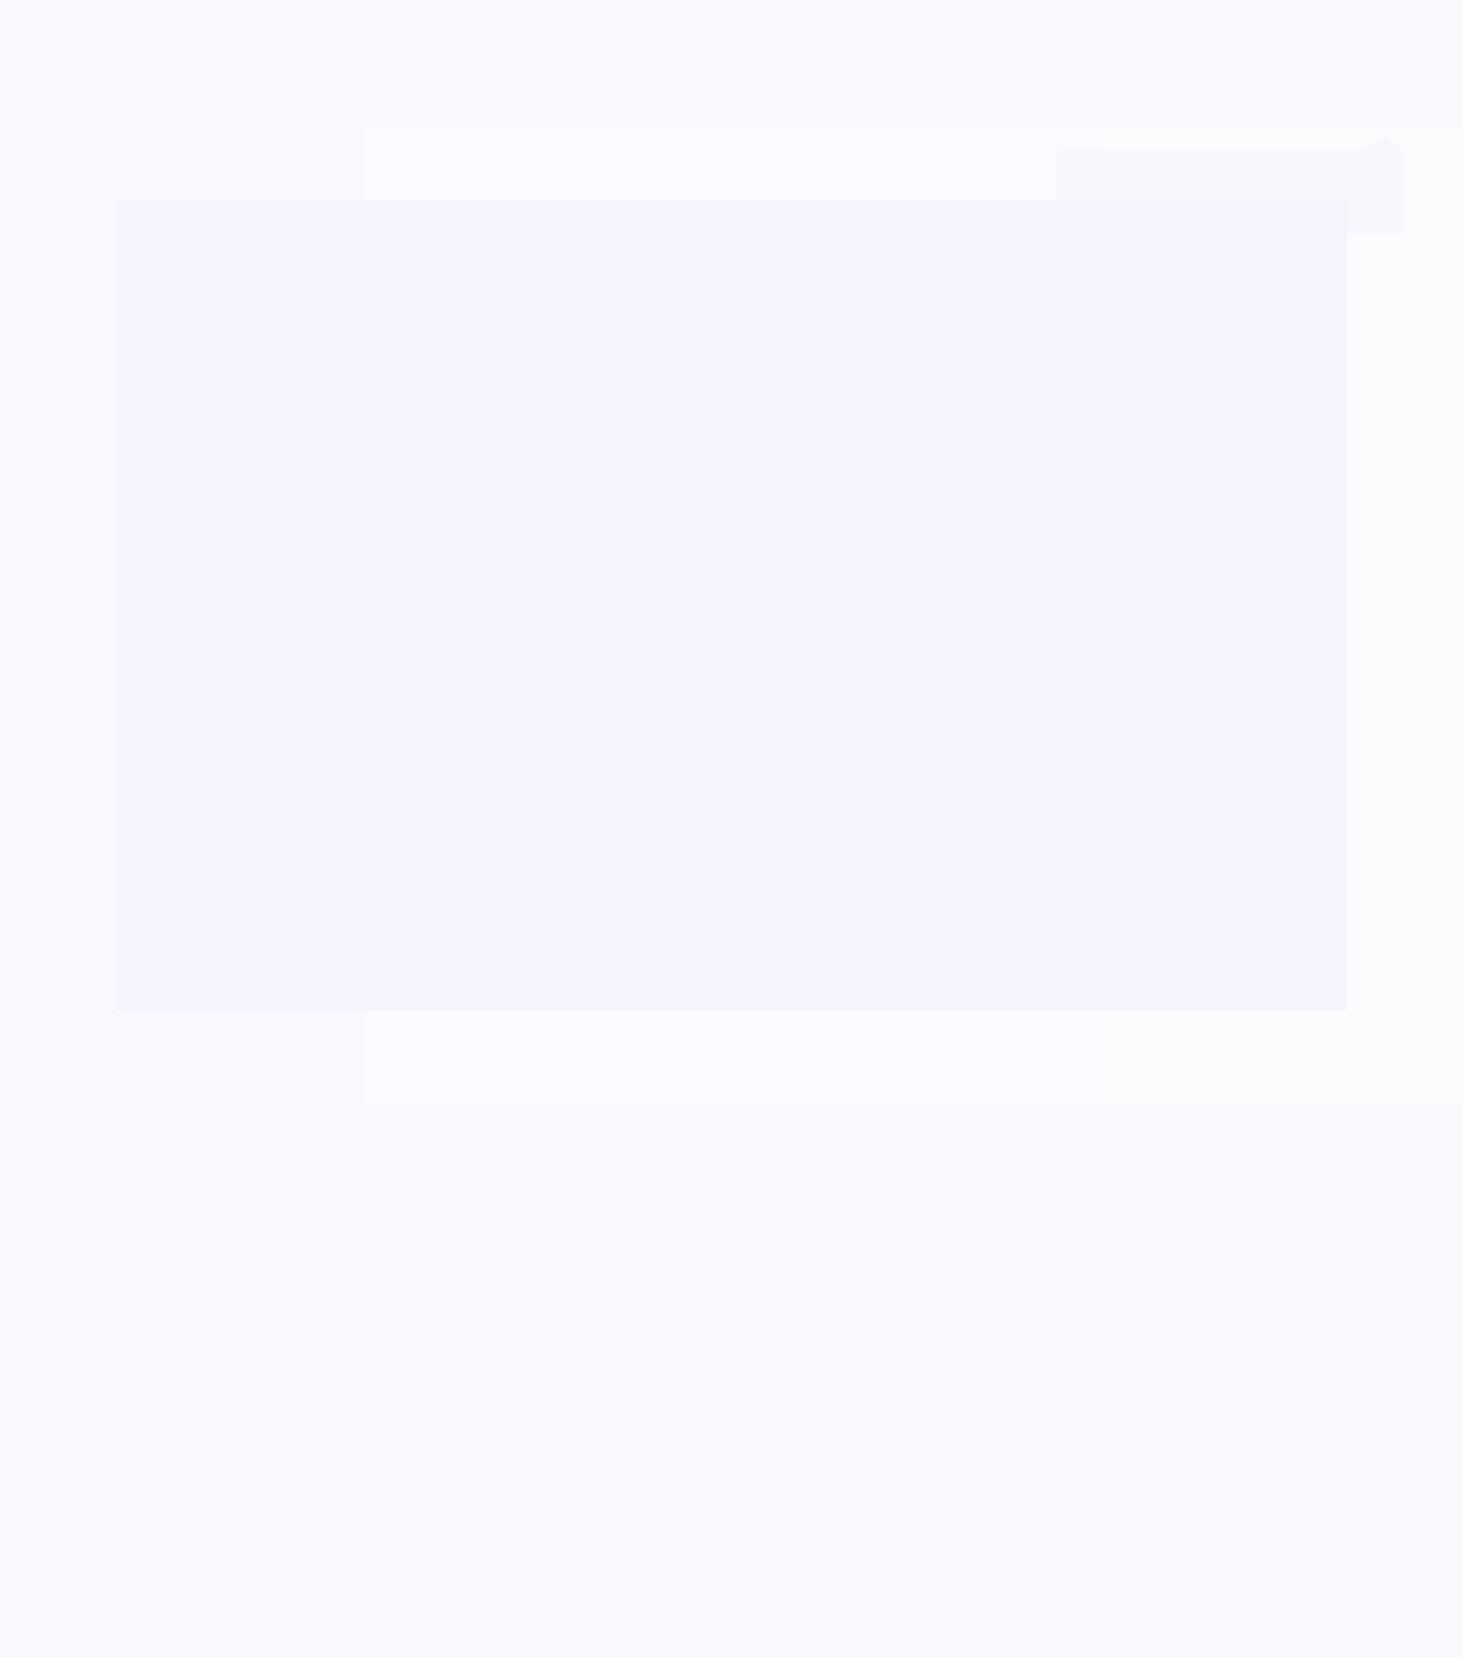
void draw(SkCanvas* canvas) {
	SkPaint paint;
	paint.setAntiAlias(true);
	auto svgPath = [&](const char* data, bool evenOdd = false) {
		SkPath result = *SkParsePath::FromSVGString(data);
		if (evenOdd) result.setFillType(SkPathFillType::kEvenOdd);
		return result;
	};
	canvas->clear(0xfff8f8fd);
	{
		const SkColor colors[] = {0xfffcfcff, 0xfffafaff};
		const float stops[] = {0, 1};
		const SkPoint ends[] = {{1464, 616}, {0, 616}};
		paint.setShader(SkGradientShader::MakeLinear(ends, colors, stops, 2, SkTileMode::kClamp));
		paint.setAlpha(255);
	}
	canvas->drawRect(SkRect::MakeXYWH(366, 128, 1097, 976), paint);
	paint.setShader(nullptr);
	paint.setColor(0xfff8f8fc);
	canvas->drawPath(svgPath("M1402.5 150H1366.5L1384.5 135Z"), paint);
	canvas->drawRect(SkRect::MakeXYWH(1059, 150, 345, 84), paint);
	paint.setColor(0xfff4f4fc);
	canvas->drawRect(SkRect::MakeXYWH(117, 200, 1230, 810), paint);
}
